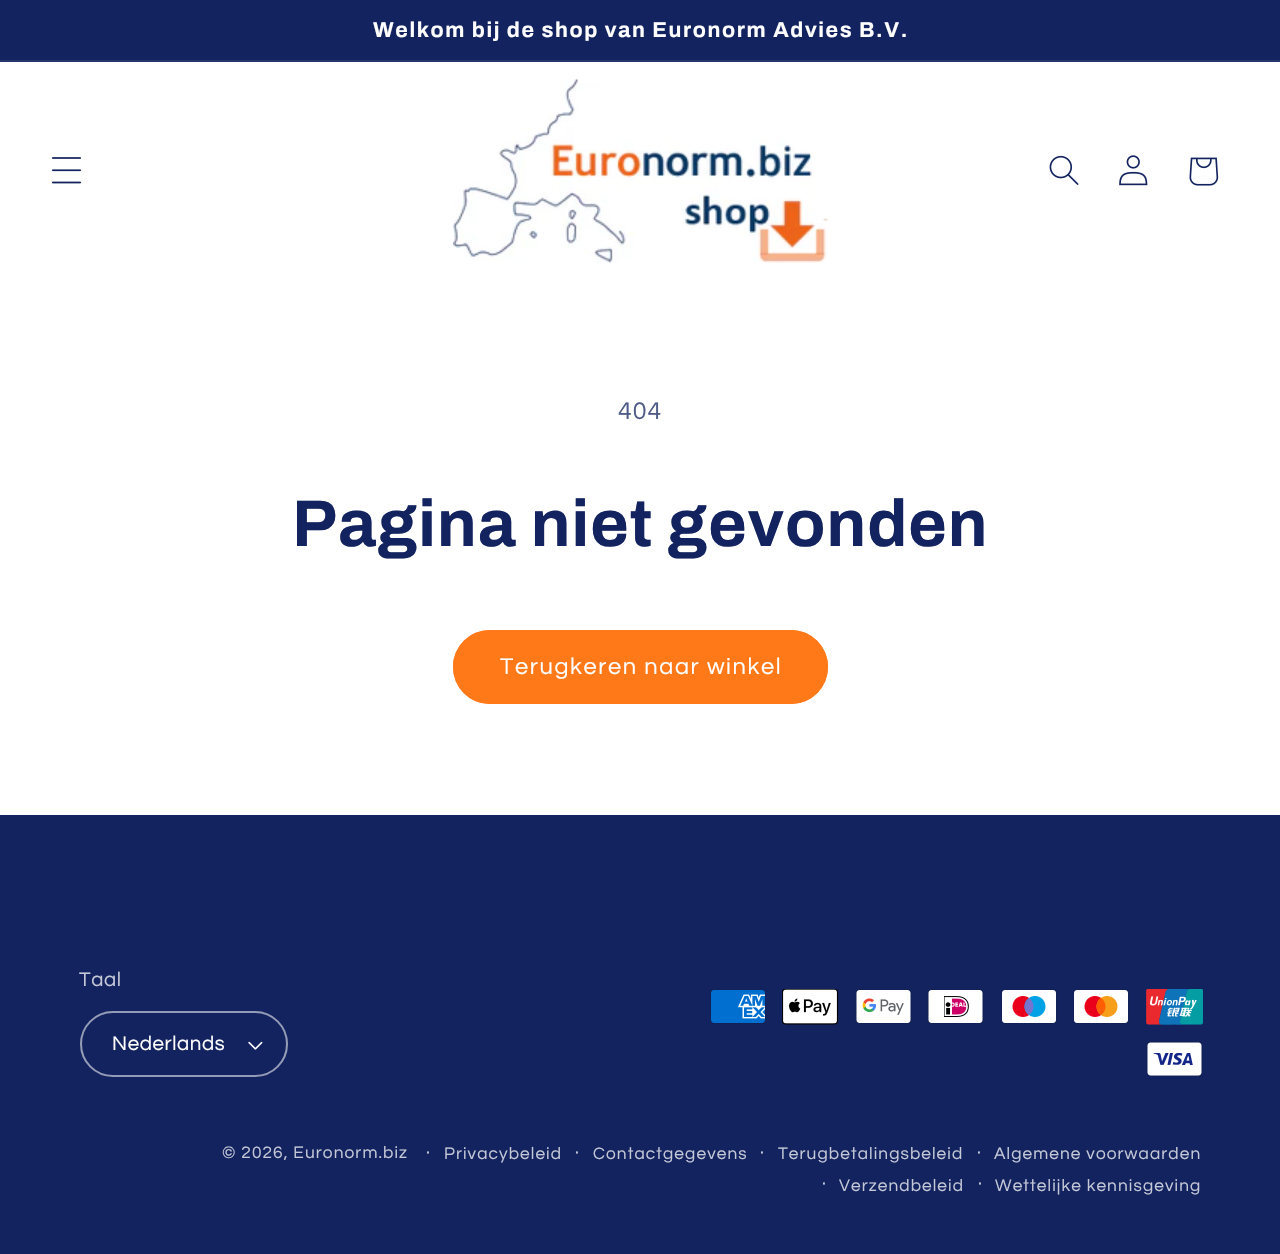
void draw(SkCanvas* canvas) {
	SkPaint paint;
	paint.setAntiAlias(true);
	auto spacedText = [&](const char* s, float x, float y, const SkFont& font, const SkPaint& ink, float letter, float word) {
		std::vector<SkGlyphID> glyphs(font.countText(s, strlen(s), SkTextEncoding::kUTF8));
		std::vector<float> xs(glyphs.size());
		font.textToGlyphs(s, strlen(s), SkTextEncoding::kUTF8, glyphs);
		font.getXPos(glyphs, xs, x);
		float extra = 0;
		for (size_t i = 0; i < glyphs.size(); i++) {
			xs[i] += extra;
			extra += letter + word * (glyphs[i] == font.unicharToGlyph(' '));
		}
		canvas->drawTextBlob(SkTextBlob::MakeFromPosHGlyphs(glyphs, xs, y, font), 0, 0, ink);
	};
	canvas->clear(0xffffffff);
	paint.setColor(0xff13235f);
	canvas->drawRect(SkRect::MakeXYWH(0, 0, 1280, 60), paint);
	paint.setColor(0xff26356c);
	canvas->drawRect(SkRect::MakeXYWH(0, 60, 1280, 2), paint);
	SkFont f1(fontMgr->matchFamilyStyle("Archivo", SkFontStyle::Bold()), 21.45);
	f1.setSubpixel(true);
	paint.setColor(0xffffffff);
	spacedText("Welkom bij de shop van Euronorm Advies B.V.", 373, 37, f1, paint, 1.6, 0);
	canvas->drawImageRect(SkImages::DeferredFromEncodedData(SkData::MakeFromFileName("img1.png")), SkRect::MakeXYWH(51, 157, 31, 27), SkSamplingOptions());
	canvas->drawImageRect(SkImages::DeferredFromEncodedData(SkData::MakeFromFileName("img2.png")), SkRect::MakeXYWH(453, 79, 375, 184), SkSamplingOptions());
	canvas->drawImageRect(SkImages::DeferredFromEncodedData(SkData::MakeFromFileName("img3.png")), SkRect::MakeXYWH(1049, 155, 30, 30), SkSamplingOptions());
	canvas->drawImageRect(SkImages::DeferredFromEncodedData(SkData::MakeFromFileName("img4.png")), SkRect::MakeXYWH(1119, 155, 29, 31), SkSamplingOptions());
	canvas->drawImageRect(SkImages::DeferredFromEncodedData(SkData::MakeFromFileName("img5.png")), SkRect::MakeXYWH(1189, 157, 30, 29), SkSamplingOptions());
	SkFont f2(fontMgr->matchFamilyStyle("Questrial", SkFontStyle::Normal()), 25);
	f2.setSubpixel(true);
	paint.setColor(0xff4e5a87);
	spacedText("404", 618, 419, f2, paint, 1, 0);
	SkFont f3(fontMgr->matchFamilyStyle("Archivo", SkFontStyle::Bold()), 66);
	f3.setSubpixel(true);
	paint.setColor(0xff13235f);
	spacedText("Pagina niet gevonden", 292, 546, f3, paint, 1, 0);
	paint.setColor(0xffff7919);
	canvas->drawRoundRect(SkRect::MakeXYWH(453, 630, 375, 74), 37, 37, paint);
	paint.setStroke(true);
	paint.setStrokeWidth(2);
	canvas->drawRoundRect(SkRect::MakeXYWH(454, 631, 373, 72), 36, 36, paint);
	SkFont f4(fontMgr->matchFamilyStyle("Questrial", SkFontStyle::Normal()), 23.6);
	f4.setSubpixel(true);
	paint.setStroke(false);
	paint.setColor(0xffffffff);
	spacedText("Terugkeren naar winkel", 500, 674, f4, paint, 1.6, 0);
	paint.setColor(0xff13235f);
	canvas->drawRect(SkRect::MakeXYWH(0, 815, 1280, 439), paint);
	SkFont f5(fontMgr->matchFamilyStyle("Questrial", SkFontStyle::Normal()), 20.5);
	f5.setSubpixel(true);
	paint.setColor(0xffc4c8d7);
	spacedText("Taal", 79, 986, f5, paint, 0.6, 0);
	canvas->drawImageRect(SkImages::DeferredFromEncodedData(SkData::MakeFromFileName("img6.png")), SkRect::MakeXYWH(248, 1041, 15, 9), SkSamplingOptions());
	paint.setStroke(true);
	paint.setColor(0xff959cb7);
	canvas->drawRoundRect(SkRect::MakeXYWH(81, 1012, 206, 64), 32, 32, paint);
	paint.setStroke(false);
	paint.setColor(0xffffffff);
	spacedText("Nederlands", 112, 1050, f5, paint, 0.6, 0);
	canvas->drawImageRect(SkImages::DeferredFromEncodedData(SkData::MakeFromFileName("img7.png")), SkRect::MakeXYWH(710, 989, 56, 35), SkSamplingOptions());
	canvas->drawImageRect(SkImages::DeferredFromEncodedData(SkData::MakeFromFileName("img8.png")), SkRect::MakeXYWH(782, 989, 57, 36), SkSamplingOptions());
	canvas->drawImageRect(SkImages::DeferredFromEncodedData(SkData::MakeFromFileName("img9.png")), SkRect::MakeXYWH(855, 989, 57, 35), SkSamplingOptions());
	canvas->drawImageRect(SkImages::DeferredFromEncodedData(SkData::MakeFromFileName("img10.png")), SkRect::MakeXYWH(927, 989, 57, 35), SkSamplingOptions());
	canvas->drawImageRect(SkImages::DeferredFromEncodedData(SkData::MakeFromFileName("img11.png")), SkRect::MakeXYWH(1001, 989, 56, 35), SkSamplingOptions());
	canvas->drawImageRect(SkImages::DeferredFromEncodedData(SkData::MakeFromFileName("img12.png")), SkRect::MakeXYWH(1073, 989, 56, 35), SkSamplingOptions());
	canvas->drawImageRect(SkImages::DeferredFromEncodedData(SkData::MakeFromFileName("img13.png")), SkRect::MakeXYWH(1146, 989, 57, 36), SkSamplingOptions());
	canvas->drawImageRect(SkImages::DeferredFromEncodedData(SkData::MakeFromFileName("img14.png")), SkRect::MakeXYWH(1146, 1041, 57, 36), SkSamplingOptions());
	SkFont f6(fontMgr->matchFamilyStyle("Questrial", SkFontStyle::Normal()), 17.25);
	f6.setSubpixel(true);
	paint.setColor(0xffc4c8d7);
	spacedText("© 2026, Euronorm.biz", 222, 1158, f6, paint, 1.1, 0);
	SkFont f7(fontMgr->matchFamilyStyle("Questrial", SkFontStyle::Normal()), 19);
	f7.setSubpixel(true);
	spacedText("·", 426, 1158, f7, paint, 1.1, 0);
	spacedText("Privacybeleid", 444, 1159, f6, paint, 1.1, 0);
	spacedText("·", 575, 1158, f7, paint, 1.1, 0);
	spacedText("Contactgegevens", 593, 1159, f6, paint, 1.1, 0);
	spacedText("·", 760, 1158, f7, paint, 1.1, 0);
	spacedText("Terugbetalingsbeleid", 778, 1159, f6, paint, 1.1, 0);
	spacedText("·", 977, 1158, f7, paint, 1.1, 0);
	spacedText("Algemene voorwaarden", 994, 1159, f6, paint, 1.1, 0);
	spacedText("·", 822, 1189, f7, paint, 1.1, 0);
	spacedText("Verzendbeleid", 839, 1191, f6, paint, 1.1, 0);
	spacedText("·", 978, 1189, f7, paint, 1.1, 0);
	spacedText("Wettelijke kennisgeving", 995, 1191, f6, paint, 1.1, 0);
}
